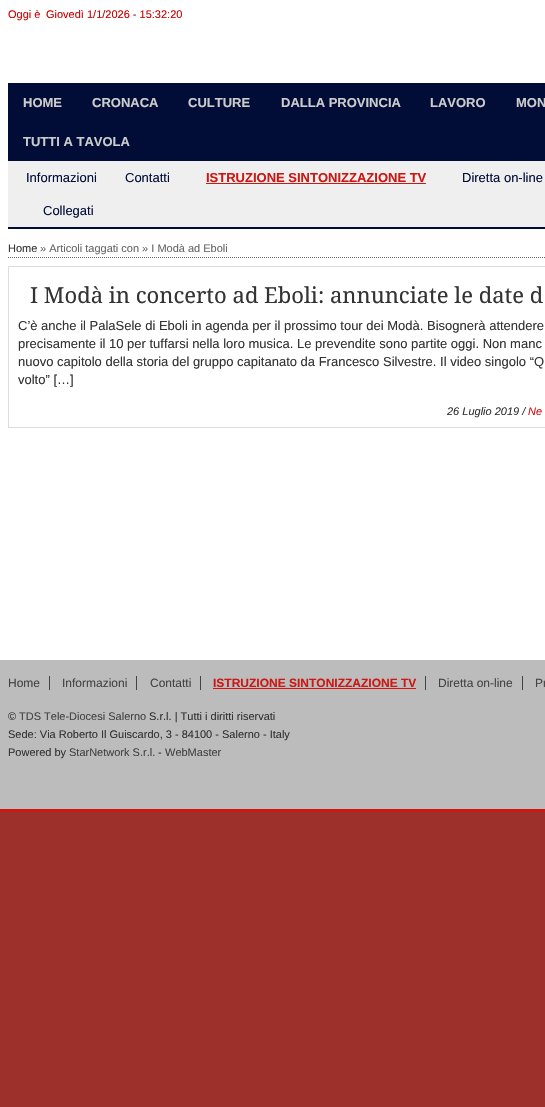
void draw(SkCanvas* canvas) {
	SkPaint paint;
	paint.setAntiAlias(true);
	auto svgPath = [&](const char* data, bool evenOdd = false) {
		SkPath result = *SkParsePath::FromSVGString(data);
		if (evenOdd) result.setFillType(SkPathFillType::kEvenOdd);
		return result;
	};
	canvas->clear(0xff9d302a);
	paint.setColor(0xffffffff);
	canvas->drawRect(SkRect::MakeXYWH(0, 0, 545, 660), paint);
	SkFont f1(fontMgr->matchFamilyStyle("Liberation Sans", SkFontStyle::Normal()), 11);
	f1.setSubpixel(true);
	paint.setColor(0xffcc0000);
	canvas->drawString("Oggi è", 8, 18, f1, paint);
	canvas->drawString("Giovedì 1/1/2026 - 15:32:20", 46, 18, f1, paint);
	paint.setColor(0xff010d37);
	canvas->drawRect(SkRect::MakeXYWH(8, 83, 537, 78), paint);
	SkFont f2(fontMgr->matchFamilyStyle("Liberation Sans", SkFontStyle::Bold()), 13);
	f2.setSubpixel(true);
	paint.setColor(0xffcccccc);
	canvas->drawString("HOME", 23, 107, f2, paint);
	canvas->drawString("CRONACA", 92, 107, f2, paint);
	canvas->drawString("CULTURE", 188, 107, f2, paint);
	canvas->drawString("DALLA PROVINCIA", 281, 107, f2, paint);
	canvas->drawString("LAVORO", 430, 107, f2, paint);
	canvas->drawString("MON", 516, 107, f2, paint);
	canvas->drawString("TUTTI A TAVOLA", 23, 146, f2, paint);
	paint.setColor(0xffefefef);
	canvas->drawRect(SkRect::MakeXYWH(8, 161, 537, 66), paint);
	paint.setColor(0xff010d37);
	canvas->drawRect(SkRect::MakeXYWH(8, 227, 537, 2), paint);
	SkFont f3(fontMgr->matchFamilyStyle("Liberation Sans", SkFontStyle::Normal()), 13);
	f3.setSubpixel(true);
	canvas->drawString("Informazioni", 26, 182, f3, paint);
	canvas->drawString("Contatti", 125, 182, f3, paint);
	paint.setColor(0xffcd1713);
	canvas->drawString("ISTRUZIONE SINTONIZZAZIONE TV", 206, 182, f2, paint);
	canvas->drawRect(SkRect::MakeXYWH(206, 183, 220, 1), paint);
	paint.setColor(0xff010d37);
	canvas->drawString("Diretta on-line", 462, 182, f3, paint);
	canvas->drawString("Collegati", 43, 215, f3, paint);
	paint.setStroke(true);
	paint.setStrokeWidth(1);
	paint.setColor(0xff666666);
	paint.setPathEffect(SkDashPathEffect::Make({{1, 1}}, 0));
	canvas->drawPath(svgPath("M8 257.5H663"), paint);
	paint.setPathEffect(nullptr);
	paint.setStroke(false);
	paint.setColor(0xff333333);
	canvas->drawString("Home", 8, 252, f1, paint);
	paint.setColor(0xff666666);
	canvas->drawString("» Articoli taggati con » I Modà ad Eboli", 40, 252, f1, paint);
	paint.setStroke(true);
	paint.setColor(0xffdddddd);
	canvas->drawRect(SkRect::MakeXYWH(8.5, 266.5, 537, 161), paint);
	SkFont f4(fontMgr->matchFamilyStyle("Droid Serif", SkFontStyle::Normal()), 22);
	f4.setSubpixel(true);
	paint.setStroke(false);
	paint.setColor(0xff333333);
	canvas->drawString("I Modà in concerto ad Eboli: annunciate le date d", 30, 303, f4, paint);
	canvas->drawString("C’è anche il PalaSele di Eboli in agenda per il prossimo tour dei Modà. Bisognerà attendere", 18, 330, f3, paint);
	canvas->drawString("precisamente il 10 per tuffarsi nella loro musica. Le prevendite sono partite oggi. Non manc", 18, 348, f3, paint);
	canvas->drawString("nuovo capitolo della storia del gruppo capitanato da Francesco Silvestre. Il video singolo “Q", 18, 366, f3, paint);
	canvas->drawString("volto” […]", 18, 384, f3, paint);
	SkFont f5(fontMgr->matchFamilyStyle("Liberation Sans", SkFontStyle::Italic()), 11);
	f5.setSubpixel(true);
	canvas->drawString("26 Luglio 2019 /", 447, 415, f5, paint);
	paint.setColor(0xffcd1713);
	canvas->drawString("Ne", 528, 415, f5, paint);
	paint.setColor(0xffbcbcbc);
	canvas->drawRect(SkRect::MakeXYWH(0, 660, 545, 149), paint);
	paint.setColor(0xffcd1713);
	canvas->drawRect(SkRect::MakeXYWH(0, 809, 545, 3), paint);
	SkFont f6(fontMgr->matchFamilyStyle("Liberation Sans", SkFontStyle::Normal()), 12);
	f6.setSubpixel(true);
	paint.setColor(0xff434343);
	canvas->drawString("Home", 8, 687, f6, paint);
	canvas->drawRect(SkRect::MakeXYWH(49, 676, 1, 14), paint);
	canvas->drawString("Informazioni", 62, 687, f6, paint);
	canvas->drawRect(SkRect::MakeXYWH(136, 676, 1, 14), paint);
	canvas->drawString("Contatti", 150, 687, f6, paint);
	canvas->drawRect(SkRect::MakeXYWH(200, 676, 1, 14), paint);
	SkFont f7(fontMgr->matchFamilyStyle("Liberation Sans", SkFontStyle::Bold()), 12);
	f7.setSubpixel(true);
	paint.setColor(0xffcd1713);
	canvas->drawString("ISTRUZIONE SINTONIZZAZIONE TV", 213, 687, f7, paint);
	paint.setColor(0xff434343);
	canvas->drawRect(SkRect::MakeXYWH(425, 676, 1, 14), paint);
	paint.setColor(0xffcd1713);
	canvas->drawRect(SkRect::MakeXYWH(213, 688, 203, 1), paint);
	paint.setColor(0xff434343);
	canvas->drawString("Diretta on-line", 438, 687, f6, paint);
	canvas->drawRect(SkRect::MakeXYWH(522, 676, 1, 14), paint);
	canvas->drawString("Pr", 535, 687, f6, paint);
	paint.setColor(0xff333333);
	canvas->drawString("©", 8, 720, f1, paint);
	paint.setColor(0xff434343);
	canvas->drawString("TDS Tele-Diocesi Salerno", 19, 720, f1, paint);
	paint.setColor(0xff333333);
	canvas->drawString("S.r.l. | Tutti i diritti riservati", 149, 720, f1, paint);
	canvas->drawString("Sede: Via Roberto Il Guiscardo, 3 - 84100 - Salerno - Italy", 8, 738, f1, paint);
	canvas->drawString("Powered by", 8, 756, f1, paint);
	paint.setColor(0xff434343);
	canvas->drawString("StarNetwork S.r.l.", 69, 756, f1, paint);
	paint.setColor(0xff333333);
	canvas->drawString("-", 158, 756, f1, paint);
	paint.setColor(0xff434343);
	canvas->drawString("WebMaster", 165, 756, f1, paint);
}
